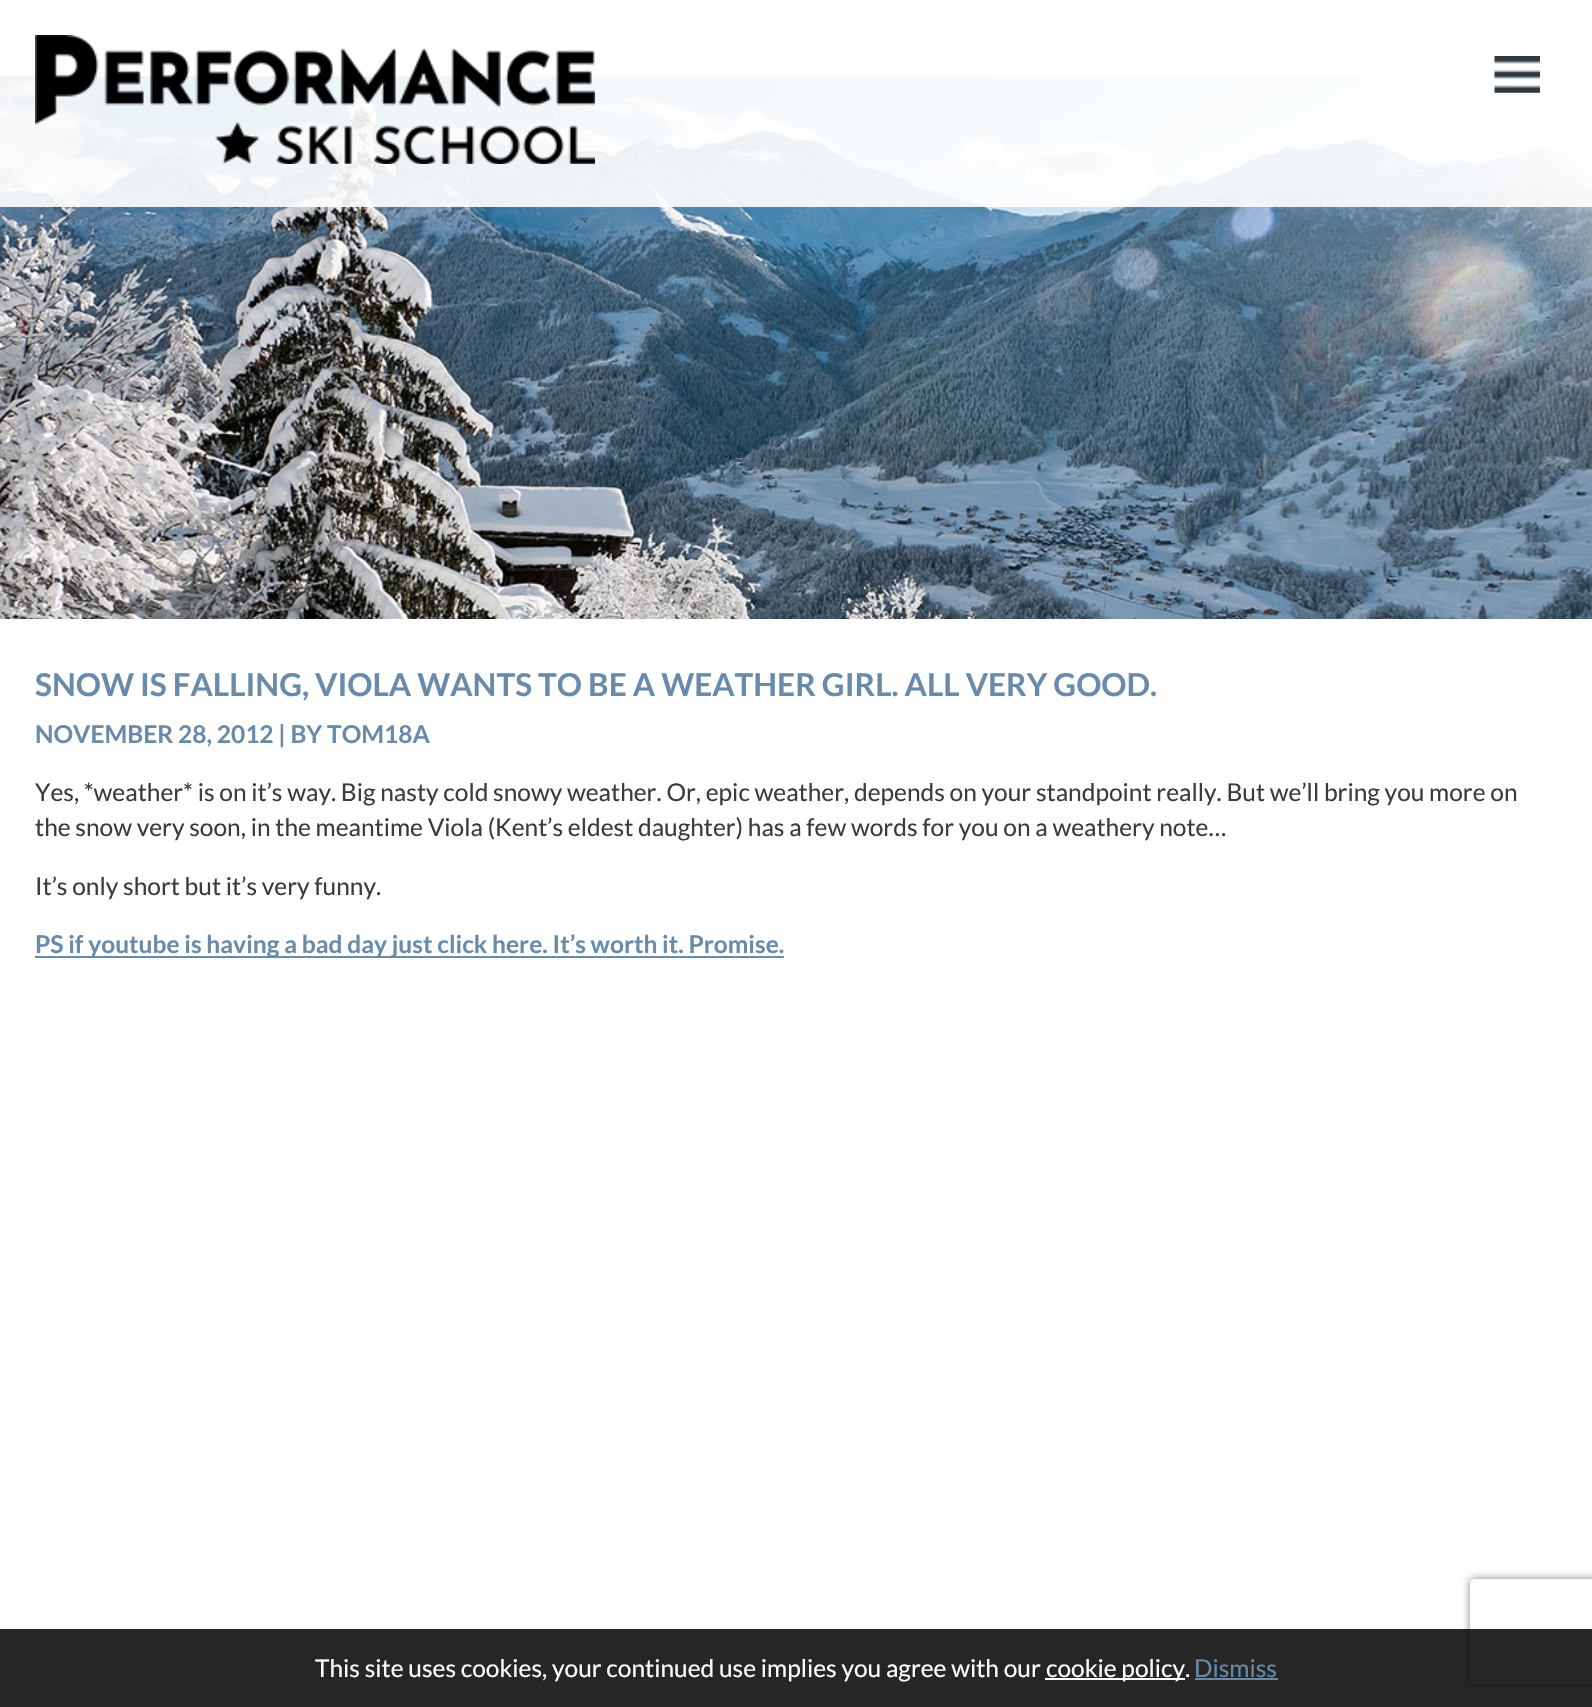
void draw(SkCanvas* canvas) {
	SkPaint paint;
	paint.setAntiAlias(true);
	auto svgPath = [&](const char* data, bool evenOdd = false) {
		SkPath result = *SkParsePath::FromSVGString(data);
		if (evenOdd) result.setFillType(SkPathFillType::kEvenOdd);
		return result;
	};
	canvas->clear(0xffffffff);
	canvas->drawImageRect(SkImages::DeferredFromEncodedData(SkData::MakeFromFileName("img3.png")), SkRect::MakeXYWH(0, 76, 1592, 543), SkSamplingOptions());
	paint.setColor(0xe6ffffff);
	canvas->drawRect(SkRect::MakeXYWH(0, 76, 1592, 131), paint);
	canvas->drawImageRect(SkImages::DeferredFromEncodedData(SkData::MakeFromFileName("img1.png")), SkRect::MakeXYWH(35, 35, 560, 129), SkSamplingOptions());
	canvas->drawImageRect(SkImages::DeferredFromEncodedData(SkData::MakeFromFileName("img2.png")), SkRect::MakeXYWH(1494, 56, 46, 37), SkSamplingOptions());
	SkFont f1(fontMgr->matchFamilyStyle("Lato", SkFontStyle::Bold()), 31.5);
	f1.setSubpixel(true);
	paint.setColor(0xff698bab);
	canvas->drawString("SNOW IS FALLING, VIOLA WANTS TO BE A WEATHER GIRL. ALL VERY GOOD.", 35, 696, f1, paint);
	SkFont f2(fontMgr->matchFamilyStyle("Lato", SkFontStyle::Bold()), 24.5);
	f2.setSubpixel(true);
	canvas->drawString("NOVEMBER 28, 2012 | BY TOM18A", 35, 743, f2, paint);
	SkFont f3(fontMgr->matchFamilyStyle("Lato", SkFontStyle::Normal()), 24.5);
	f3.setSubpixel(true);
	paint.setColor(0xff383c41);
	canvas->drawString("Yes, *weather* is on it’s way. Big nasty cold snowy weather. Or, epic weather, depends on your standpoint really. But we’ll bring you more on", 35, 801, f3, paint);
	canvas->drawString("the snow very soon, in the meantime Viola (Kent’s eldest daughter) has a few words for you on a weathery note…", 35, 836, f3, paint);
	canvas->drawString("It’s only short but it’s very funny.", 35, 895, f3, paint);
	paint.setColor(0xff698bab);
	canvas->drawRect(SkRect::MakeXYWH(35, 956, 749, 2), paint);
	canvas->drawString("PS if youtube is having a bad day just click here. It’s worth it. Promise.", 35, 953, f2, paint);
	canvas->save();
	canvas->clipPath(svgPath("M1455 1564H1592V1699H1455ZM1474 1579H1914C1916 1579 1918 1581 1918 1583V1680C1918 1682 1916 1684 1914 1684H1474C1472 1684 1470 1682 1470 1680V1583C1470 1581 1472 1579 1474 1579Z", true), true);
	paint.setColor(0xff808080);
	paint.setMaskFilter(SkMaskFilter::MakeBlur(kNormal_SkBlurStyle, 4.5));
	canvas->drawRoundRect(SkRect::MakeXYWH(1470, 1579, 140, 105), 4, 4, paint);
	paint.setMaskFilter(nullptr);
	canvas->restore();
	paint.setColor(0xd9000000);
	canvas->drawRect(SkRect::MakeXYWH(0, 1629, 1592, 78), paint);
	paint.setColor(0xffffffff);
	canvas->drawString("This site uses cookies, your continued use implies you agree with our", 315, 1677, f3, paint);
	canvas->drawRect(SkRect::MakeXYWH(1045, 1678, 140, 2), paint);
	canvas->drawString("cookie policy.", 1046, 1677, f3, paint);
	paint.setColor(0xff698bab);
	canvas->drawString("Dismiss", 1194, 1677, f3, paint);
	canvas->drawRect(SkRect::MakeXYWH(1195, 1678, 83, 2), paint);
}
